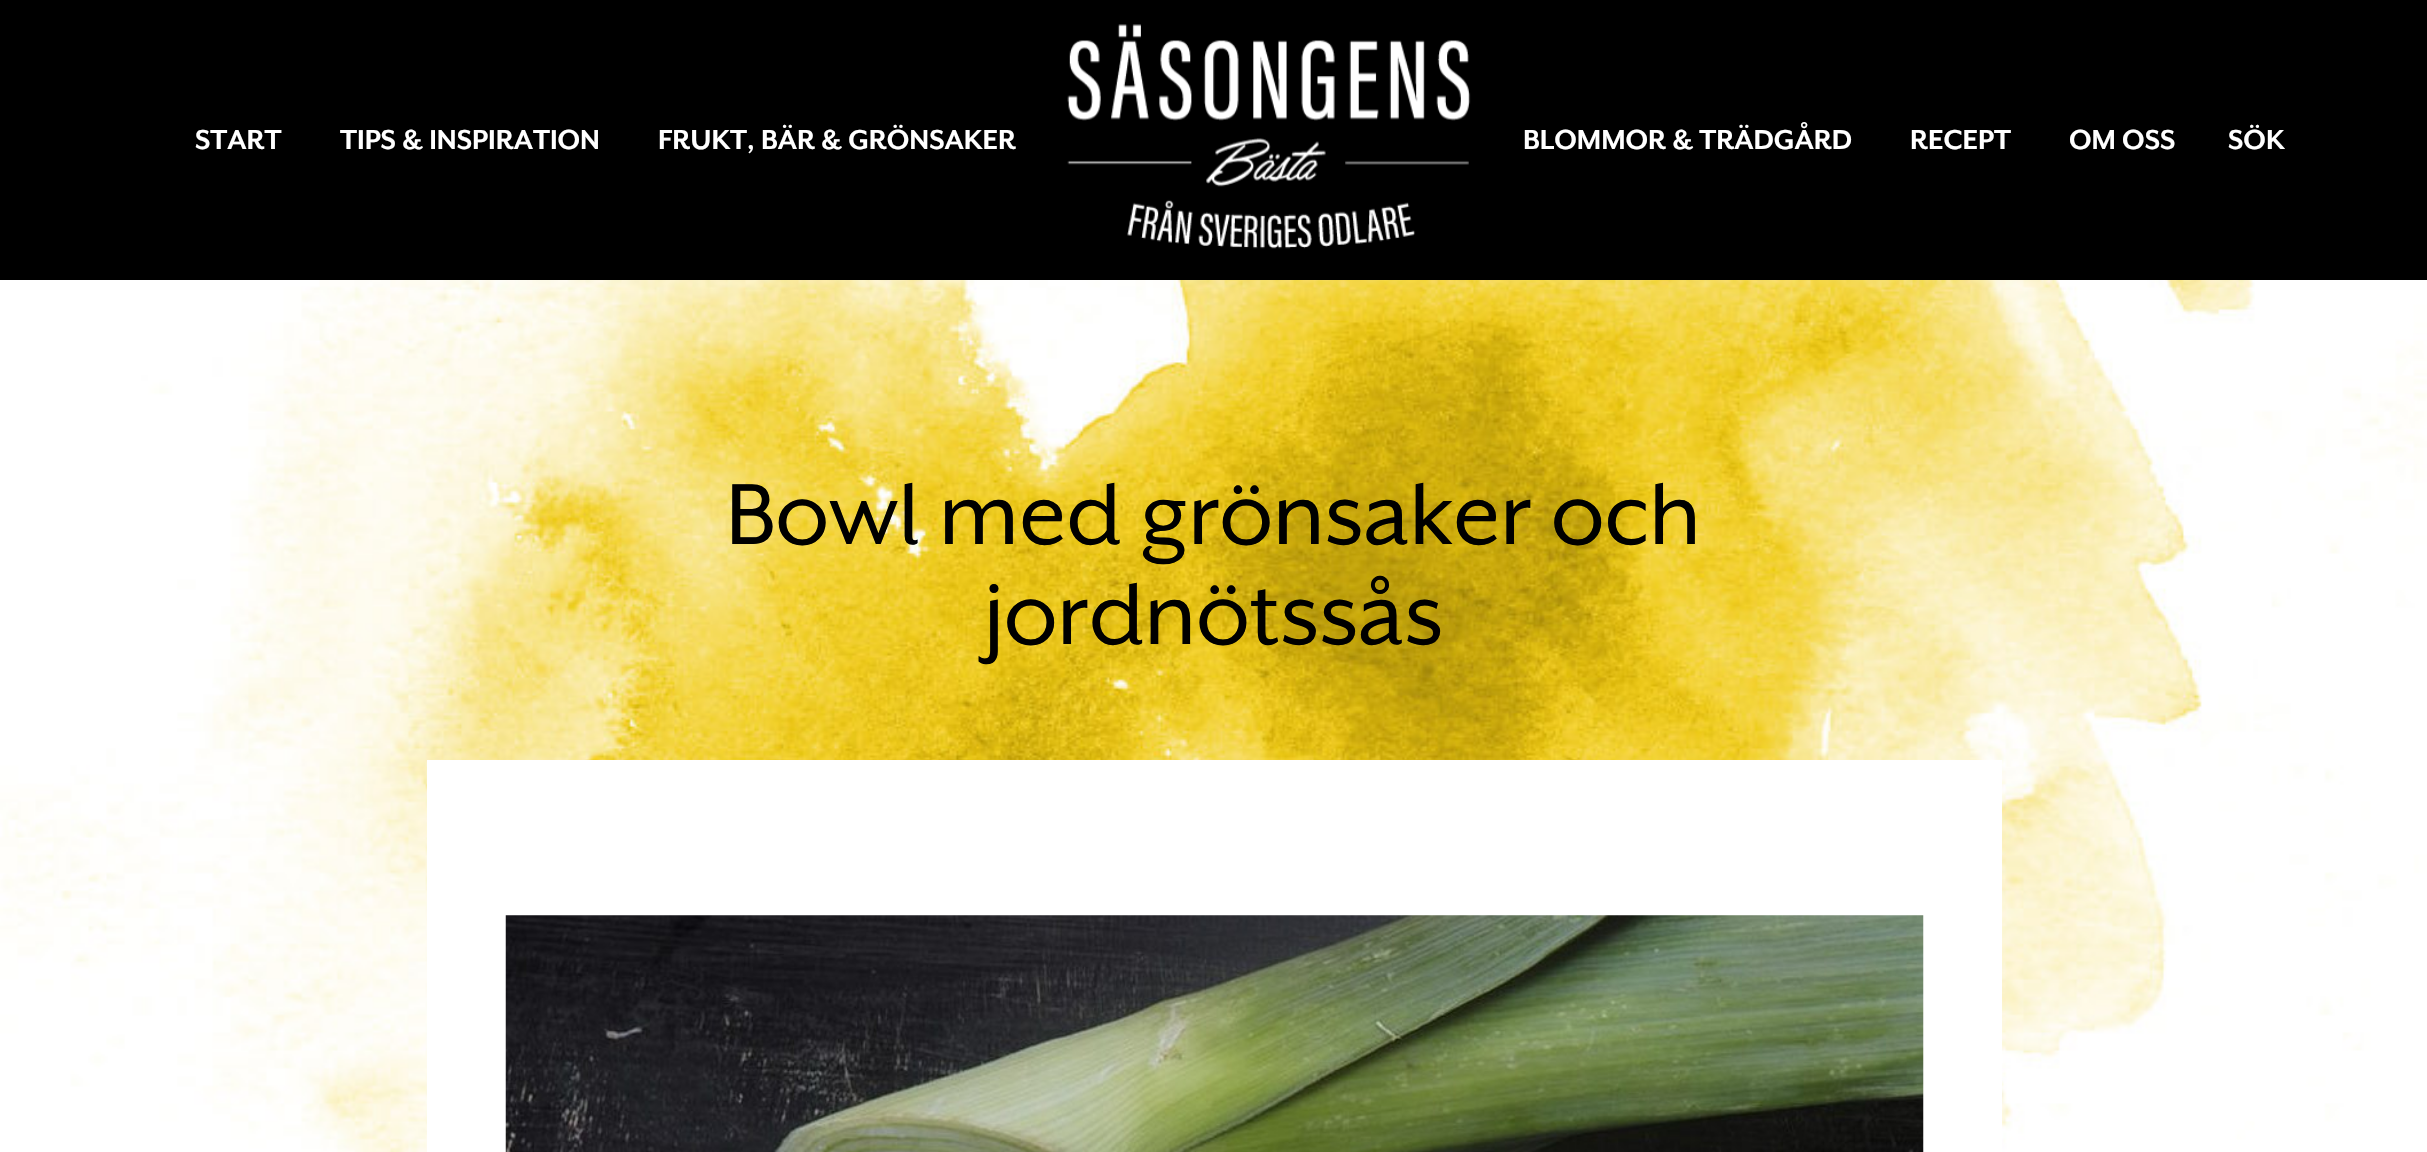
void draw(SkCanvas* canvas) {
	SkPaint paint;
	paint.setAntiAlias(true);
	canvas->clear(0xffffffff);
	paint.setColor(0xff000000);
	canvas->drawRect(SkRect::MakeXYWH(0, 0, 2427, 280), paint);
	SkFont f1(fontMgr->matchFamilyStyle("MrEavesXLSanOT", SkFontStyle::Bold()), 31.5);
	f1.setSubpixel(true);
	paint.setColor(0xffffffff);
	canvas->drawString("START", 195, 149, f1, paint);
	canvas->drawString("TIPS & INSPIRATION", 340, 149, f1, paint);
	canvas->drawString("FRUKT, BÄR & GRÖNSAKER", 658, 149, f1, paint);
	canvas->drawImageRect(SkImages::DeferredFromEncodedData(SkData::MakeFromFileName("img1.png")), SkRect::MakeXYWH(1067, 24, 404, 225), SkSamplingOptions());
	canvas->drawString("BLOMMOR & TRÄDGÅRD", 1523, 149, f1, paint);
	canvas->drawString("RECEPT", 1910, 149, f1, paint);
	canvas->drawString("OM OSS", 2069, 149, f1, paint);
	canvas->drawString("SÖK", 2228, 149, f1, paint);
	canvas->drawImageRect(SkImages::DeferredFromEncodedData(SkData::MakeFromFileName("img2.png")), SkRect::MakeXYWH(0, 280, 2427, 872), SkSamplingOptions());
	SkFont f2(fontMgr->matchFamilyStyle("MrEavesXLSanOT", SkFontStyle::Normal()), 99.75);
	f2.setSubpixel(true);
	paint.setColor(0xff000000);
	canvas->drawString("Bowl med grönsaker och", 726, 544, f2, paint);
	canvas->drawString("jordnötssås", 984, 644, f2, paint);
	paint.setColor(0xffffffff);
	canvas->drawRect(SkRect::MakeXYWH(427, 760, 1575, 392), paint);
	canvas->drawImageRect(SkImages::DeferredFromEncodedData(SkData::MakeFromFileName("img3.png")), SkRect::MakeXYWH(505, 915, 1419, 237), SkSamplingOptions());
}
